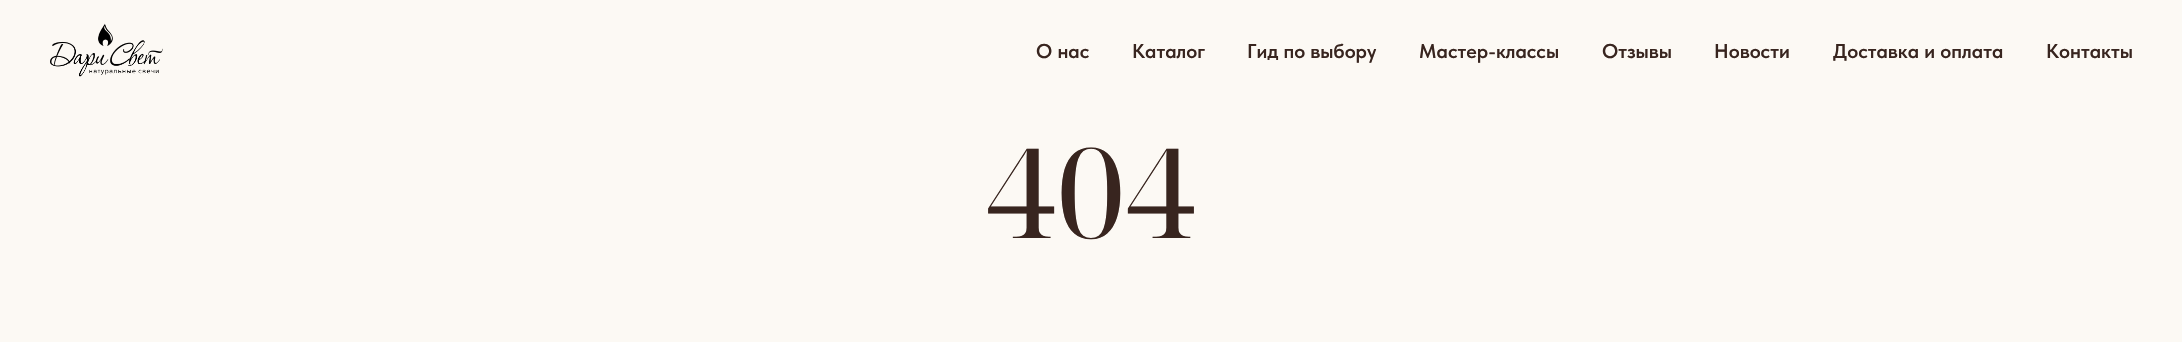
void draw(SkCanvas* canvas) {
	SkPaint paint;
	paint.setAntiAlias(true);
	canvas->clear(0xfffcf9f4);
	canvas->drawImageRect(SkImages::DeferredFromEncodedData(SkData::MakeFromFileName("img1.png")), SkRect::MakeXYWH(50, 23, 113, 54), SkSamplingOptions());
	SkFont f1(fontMgr->matchFamilyStyle("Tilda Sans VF", SkFontStyle(600, SkFontStyle::kNormal_Width, SkFontStyle::kUpright_Slant)), 20);
	f1.setSubpixel(true);
	paint.setColor(0xff38251f);
	canvas->drawString("О нас", 1036, 58, f1, paint);
	canvas->drawString("Каталог", 1132, 58, f1, paint);
	canvas->drawString("Гид по выбору", 1247, 58, f1, paint);
	canvas->drawString("Мастер-классы", 1419, 58, f1, paint);
	canvas->drawString("Отзывы", 1602, 58, f1, paint);
	canvas->drawString("Новости", 1714, 58, f1, paint);
	canvas->drawString("Доставка и оплата", 1833, 58, f1, paint);
	canvas->drawString("Контакты", 2046, 58, f1, paint);
	SkFont f2(fontMgr->matchFamilyStyle("Noto Serif Display", SkFontStyle::Normal()), 125);
	f2.setSubpixel(true);
	canvas->drawString("404", 986, 238, f2, paint);
}
